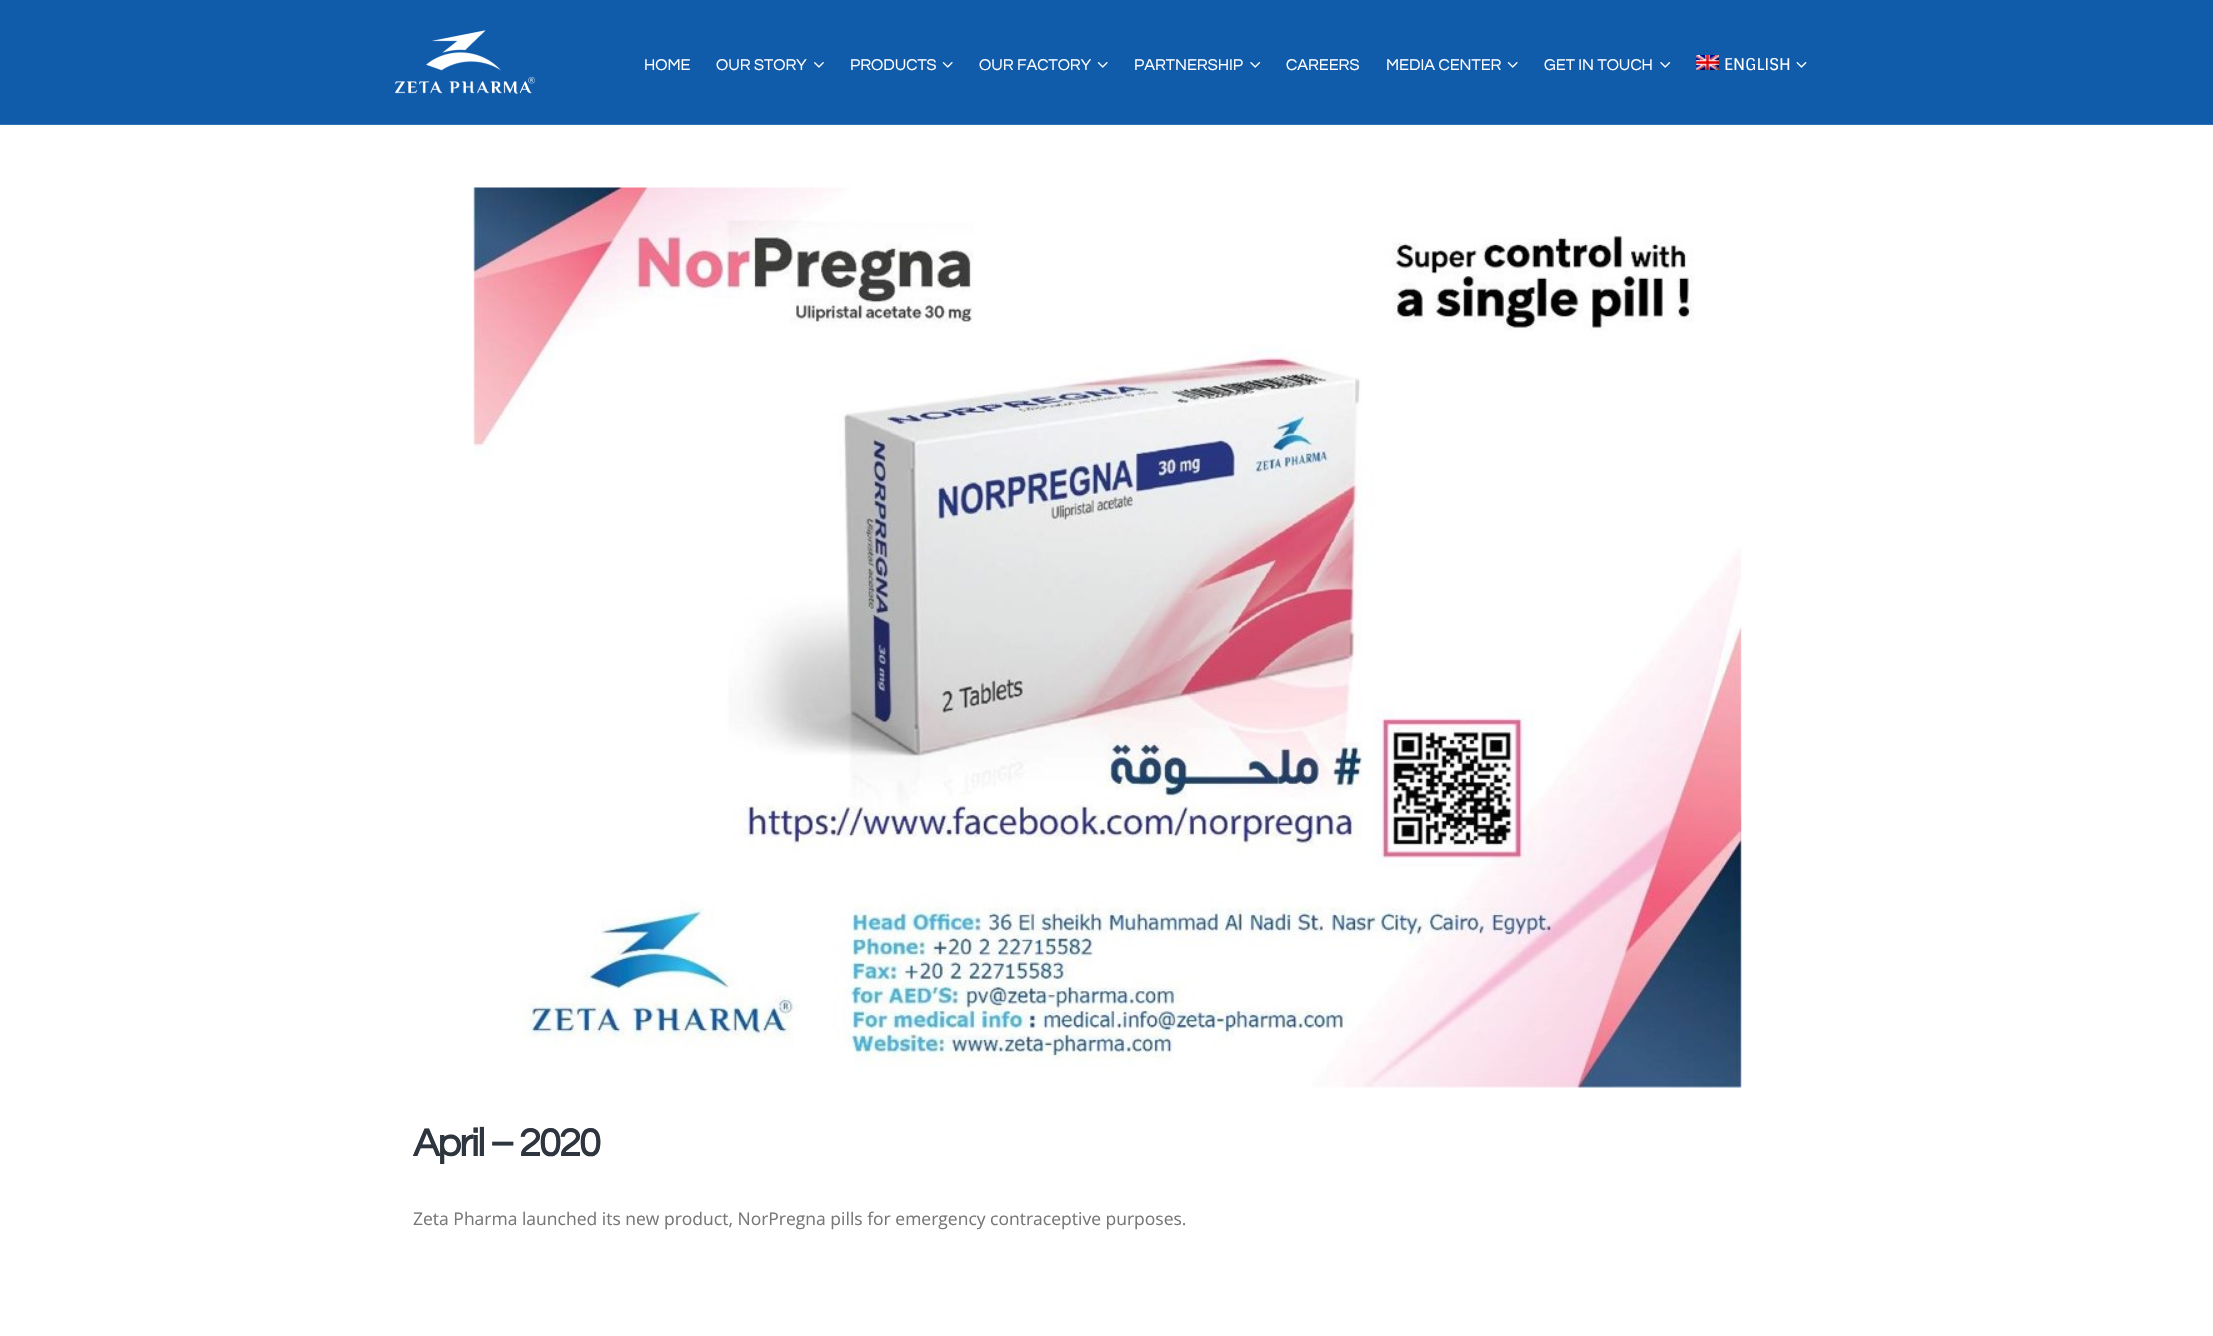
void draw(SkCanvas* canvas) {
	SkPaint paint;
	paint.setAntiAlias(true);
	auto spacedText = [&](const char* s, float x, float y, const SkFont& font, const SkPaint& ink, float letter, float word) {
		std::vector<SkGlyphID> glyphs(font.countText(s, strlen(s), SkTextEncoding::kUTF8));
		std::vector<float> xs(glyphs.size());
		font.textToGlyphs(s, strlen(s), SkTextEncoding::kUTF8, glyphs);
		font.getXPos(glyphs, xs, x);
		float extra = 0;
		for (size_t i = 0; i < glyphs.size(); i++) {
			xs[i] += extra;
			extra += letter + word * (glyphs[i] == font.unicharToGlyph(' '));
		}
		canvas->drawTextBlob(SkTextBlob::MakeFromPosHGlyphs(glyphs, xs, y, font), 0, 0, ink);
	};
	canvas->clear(0xffffffff);
	paint.setColor(0xff105cab);
	canvas->drawRect(SkRect::MakeXYWH(0, 0, 2213, 124), paint);
	paint.setColor(0xff2d70b5);
	canvas->drawRect(SkRect::MakeXYWH(0, 124, 2213, 1), paint);
	canvas->drawImageRect(SkImages::DeferredFromEncodedData(SkData::MakeFromFileName("img1.png")), SkRect::MakeXYWH(395, 30, 140, 64), SkSamplingOptions());
	SkFont f1(fontMgr->matchFamilyStyle("Questrial", SkFontStyle::Normal()), 16.25);
	f1.setSubpixel(true);
	paint.setColor(0xffffffff);
	canvas->drawString("HOME", 644, 70, f1, paint);
	canvas->drawString("OUR STORY", 716, 70, f1, paint);
	canvas->drawImageRect(SkImages::DeferredFromEncodedData(SkData::MakeFromFileName("img2.png")), SkRect::MakeXYWH(814, 62, 10, 6), SkSamplingOptions());
	canvas->drawString("PRODUCTS", 850, 70, f1, paint);
	canvas->drawImageRect(SkImages::DeferredFromEncodedData(SkData::MakeFromFileName("img3.png")), SkRect::MakeXYWH(942, 62, 11, 6), SkSamplingOptions());
	canvas->drawString("OUR FACTORY", 979, 70, f1, paint);
	canvas->drawImageRect(SkImages::DeferredFromEncodedData(SkData::MakeFromFileName("img3.png")), SkRect::MakeXYWH(1097, 62, 11, 6), SkSamplingOptions());
	canvas->drawString("PARTNERSHIP", 1134, 70, f1, paint);
	canvas->drawImageRect(SkImages::DeferredFromEncodedData(SkData::MakeFromFileName("img4.png")), SkRect::MakeXYWH(1250, 62, 11, 6), SkSamplingOptions());
	canvas->drawString("CAREERS", 1286, 70, f1, paint);
	canvas->drawString("MEDIA CENTER", 1386, 70, f1, paint);
	canvas->drawImageRect(SkImages::DeferredFromEncodedData(SkData::MakeFromFileName("img3.png")), SkRect::MakeXYWH(1507, 62, 11, 6), SkSamplingOptions());
	canvas->drawString("GET IN TOUCH", 1544, 70, f1, paint);
	canvas->drawImageRect(SkImages::DeferredFromEncodedData(SkData::MakeFromFileName("img4.png")), SkRect::MakeXYWH(1660, 62, 11, 6), SkSamplingOptions());
	canvas->drawImageRect(SkImages::DeferredFromEncodedData(SkData::MakeFromFileName("img5.png")), SkRect::MakeXYWH(1696, 55, 23, 15), SkSamplingOptions());
	SkFont f2(fontMgr->matchFamilyStyle("Sintony", SkFontStyle::Normal()), 16.25);
	f2.setSubpixel(true);
	canvas->drawString("ENGLISH", 1724, 70, f2, paint);
	canvas->drawImageRect(SkImages::DeferredFromEncodedData(SkData::MakeFromFileName("img6.png")), SkRect::MakeXYWH(1796, 62, 11, 6), SkSamplingOptions());
	canvas->drawImageRect(SkImages::DeferredFromEncodedData(SkData::MakeFromFileName("img7.png")), SkRect::MakeXYWH(473, 187, 1269, 901), SkSamplingOptions());
	SkFont f3(fontMgr->matchFamilyStyle("Questrial", SkFontStyle::Bold()), 40);
	f3.setSubpixel(true);
	paint.setColor(0xff2e353e);
	spacedText("April – 2020", 413, 1156, f3, paint, -2, 0);
	SkFont f4(fontMgr->matchFamilyStyle("Open Sans", SkFontStyle::Normal()), 17.5);
	f4.setSubpixel(true);
	paint.setColor(0xff777777);
	canvas->drawString("Zeta Pharma launched its new product, NorPregna pills for emergency contraceptive purposes.", 413, 1225, f4, paint);
}
